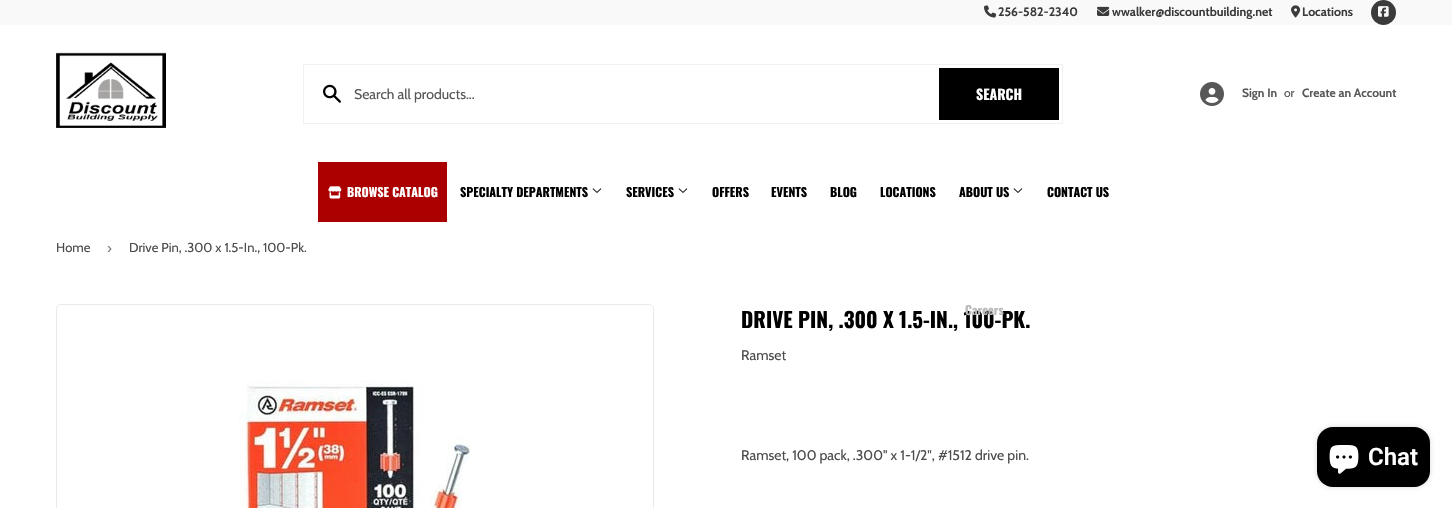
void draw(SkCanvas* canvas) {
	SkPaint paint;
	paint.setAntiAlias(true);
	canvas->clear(0xffffffff);
	paint.setColor(0xfff9f9f9);
	canvas->drawRect(SkRect::MakeXYWH(0, 0, 1452, 25), paint);
	canvas->drawImageRect(SkImages::DeferredFromEncodedData(SkData::MakeFromFileName("img1.png")), SkRect::MakeXYWH(984, 5, 13, 13), SkSamplingOptions());
	SkFont f1(fontMgr->matchFamilyStyle("Cabin", SkFontStyle::Bold()), 12.25);
	f1.setSubpixel(true);
	paint.setColor(0xff3b3b3b);
	canvas->drawString("256-582-2340", 998, 16, f1, paint);
	canvas->drawImageRect(SkImages::DeferredFromEncodedData(SkData::MakeFromFileName("img2.png")), SkRect::MakeXYWH(1097, 6, 13, 10), SkSamplingOptions());
	canvas->drawString("wwalker@discountbuilding.net", 1112, 16, f1, paint);
	canvas->drawImageRect(SkImages::DeferredFromEncodedData(SkData::MakeFromFileName("img3.png")), SkRect::MakeXYWH(1291, 5, 10, 13), SkSamplingOptions());
	canvas->drawString("Locations", 1302, 16, f1, paint);
	canvas->drawCircle(1383.5, 12.5, 12.5, paint);
	canvas->drawImageRect(SkImages::DeferredFromEncodedData(SkData::MakeFromFileName("img4.png")), SkRect::MakeXYWH(1378, 6, 11, 11), SkSamplingOptions());
	canvas->drawImageRect(SkImages::DeferredFromEncodedData(SkData::MakeFromFileName("img5.png")), SkRect::MakeXYWH(56, 52, 110, 76), SkSamplingOptions());
	paint.setStroke(true);
	paint.setStrokeWidth(1);
	paint.setColor(0xfff1f1f1);
	canvas->drawRect(SkRect::MakeXYWH(303.5, 64.5, 759, 59), paint);
	canvas->drawImageRect(SkImages::DeferredFromEncodedData(SkData::MakeFromFileName("img6.png")), SkRect::MakeXYWH(323, 84, 18, 19), SkSamplingOptions());
	SkFont f2(fontMgr->matchFamilyStyle("Cabin", SkFontStyle::Normal()), 14);
	f2.setSubpixel(true);
	paint.setStroke(false);
	paint.setColor(0xff585858);
	canvas->drawString("Search all products...", 354, 99, f2, paint);
	paint.setColor(0xff000000);
	canvas->drawRect(SkRect::MakeXYWH(939, 68, 120, 52), paint);
	SkFont f3(fontMgr->matchFamilyStyle("Oswald", SkFontStyle::Bold()), 14);
	f3.setSubpixel(true);
	paint.setColor(0xffffffff);
	canvas->drawString("SEARCH", 976, 100, f3, paint);
	canvas->drawImageRect(SkImages::DeferredFromEncodedData(SkData::MakeFromFileName("img7.png")), SkRect::MakeXYWH(1200, 82, 24, 24), SkSamplingOptions());
	SkFont f4(fontMgr->matchFamilyStyle("Cabin", SkFontStyle::Bold()), 12);
	f4.setSubpixel(true);
	paint.setColor(0xff585858);
	canvas->drawString("Sign In", 1242, 97, f4, paint);
	SkFont f5(fontMgr->matchFamilyStyle("Cabin", SkFontStyle::Normal()), 12);
	f5.setSubpixel(true);
	canvas->drawString("or", 1284, 97, f5, paint);
	canvas->drawString("Create an Account", 1302, 97, f4, paint);
	paint.setColor(0xffab0000);
	canvas->drawRect(SkRect::MakeXYWH(318, 162, 129, 60), paint);
	canvas->drawImageRect(SkImages::DeferredFromEncodedData(SkData::MakeFromFileName("img8.png")), SkRect::MakeXYWH(328, 186, 14, 13), SkSamplingOptions());
	SkFont f6(fontMgr->matchFamilyStyle("Oswald", SkFontStyle::Bold()), 12.25);
	f6.setSubpixel(true);
	paint.setColor(0xffffffff);
	canvas->drawString("BROWSE CATALOG", 347, 197, f6, paint);
	paint.setColor(0xff000000);
	canvas->drawString("SPECIALTY DEPARTMENTS", 460, 197, f6, paint);
	canvas->drawImageRect(SkImages::DeferredFromEncodedData(SkData::MakeFromFileName("img9.png")), SkRect::MakeXYWH(592, 188, 10, 5), SkSamplingOptions());
	canvas->drawString("SERVICES", 626, 197, f6, paint);
	canvas->drawImageRect(SkImages::DeferredFromEncodedData(SkData::MakeFromFileName("img9.png")), SkRect::MakeXYWH(678, 188, 10, 5), SkSamplingOptions());
	canvas->drawString("OFFERS", 712, 197, f6, paint);
	canvas->drawString("EVENTS", 771, 197, f6, paint);
	canvas->drawString("BLOG", 830, 197, f6, paint);
	canvas->drawString("LOCATIONS", 880, 197, f6, paint);
	canvas->drawString("ABOUT US", 959, 197, f6, paint);
	canvas->drawImageRect(SkImages::DeferredFromEncodedData(SkData::MakeFromFileName("img9.png")), SkRect::MakeXYWH(1013, 188, 10, 5), SkSamplingOptions());
	SkFont f7(fontMgr->matchFamilyStyle("Oswald", SkFontStyle::Bold()), 21);
	f7.setSubpixel(true);
	canvas->drawString("DRIVE PIN, .300 X 1.5-IN., 100-PK.", 741, 328, f7, paint);
	paint.setColor(0xffb9b9b9);
	canvas->drawString("Careers", 965, 315, f6, paint);
	paint.setColor(0xff000000);
	canvas->drawString("CONTACT US", 1047, 197, f6, paint);
	SkFont f8(fontMgr->matchFamilyStyle("Cabin", SkFontStyle::Normal()), 13);
	f8.setSubpixel(true);
	paint.setColor(0xff4d4d4d);
	canvas->drawString("Home", 56, 252, f8, paint);
	SkFont f9(fontMgr->matchFamilyStyle("Liberation Sans", SkFontStyle::Normal()), 15);
	f9.setSubpixel(true);
	paint.setColor(0xff767676);
	canvas->drawString("›", 107, 253, f9, paint);
	paint.setColor(0xff4d4d4d);
	canvas->drawString("Drive Pin, .300 x 1.5-In., 100-Pk.", 129, 252, f8, paint);
	paint.setStroke(true);
	paint.setColor(0xffeaeaea);
	canvas->drawRoundRect(SkRect::MakeXYWH(56.5, 304.5, 597, 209), 4.5, 4.5, paint);
	canvas->drawImageRect(SkImages::DeferredFromEncodedData(SkData::MakeFromFileName("img10.png")), SkRect::MakeXYWH(239, 381, 231, 127), SkSamplingOptions());
	paint.setStroke(false);
	paint.setColor(0xff4d4d4d);
	canvas->drawString("Ramset", 741, 360, f2, paint);
	canvas->drawString("Ramset, 100 pack, .300\" x 1-1/2\", #1512 drive pin.", 741, 460, f2, paint);
	paint.setColor(0x26000000);
	paint.setMaskFilter(SkMaskFilter::MakeBlur(kNormal_SkBlurStyle, 2.5));
	canvas->drawRoundRect(SkRect::MakeXYWH(1317, 427, 113, 60), 16, 16, paint);
	paint.setMaskFilter(nullptr);
	paint.setColor(0xff000000);
	canvas->drawRoundRect(SkRect::MakeXYWH(1317, 427, 113, 60), 16, 16, paint);
	canvas->drawImageRect(SkImages::DeferredFromEncodedData(SkData::MakeFromFileName("img11.png")), SkRect::MakeXYWH(1329, 445, 30, 29), SkSamplingOptions());
	SkFont f10(fontMgr->matchFamilyStyle("Roboto", SkFontStyle(600, SkFontStyle::kNormal_Width, SkFontStyle::kUpright_Slant)), 24);
	f10.setSubpixel(true);
	paint.setColor(0xffffffff);
	canvas->drawString("Chat", 1368, 465, f10, paint);
}
